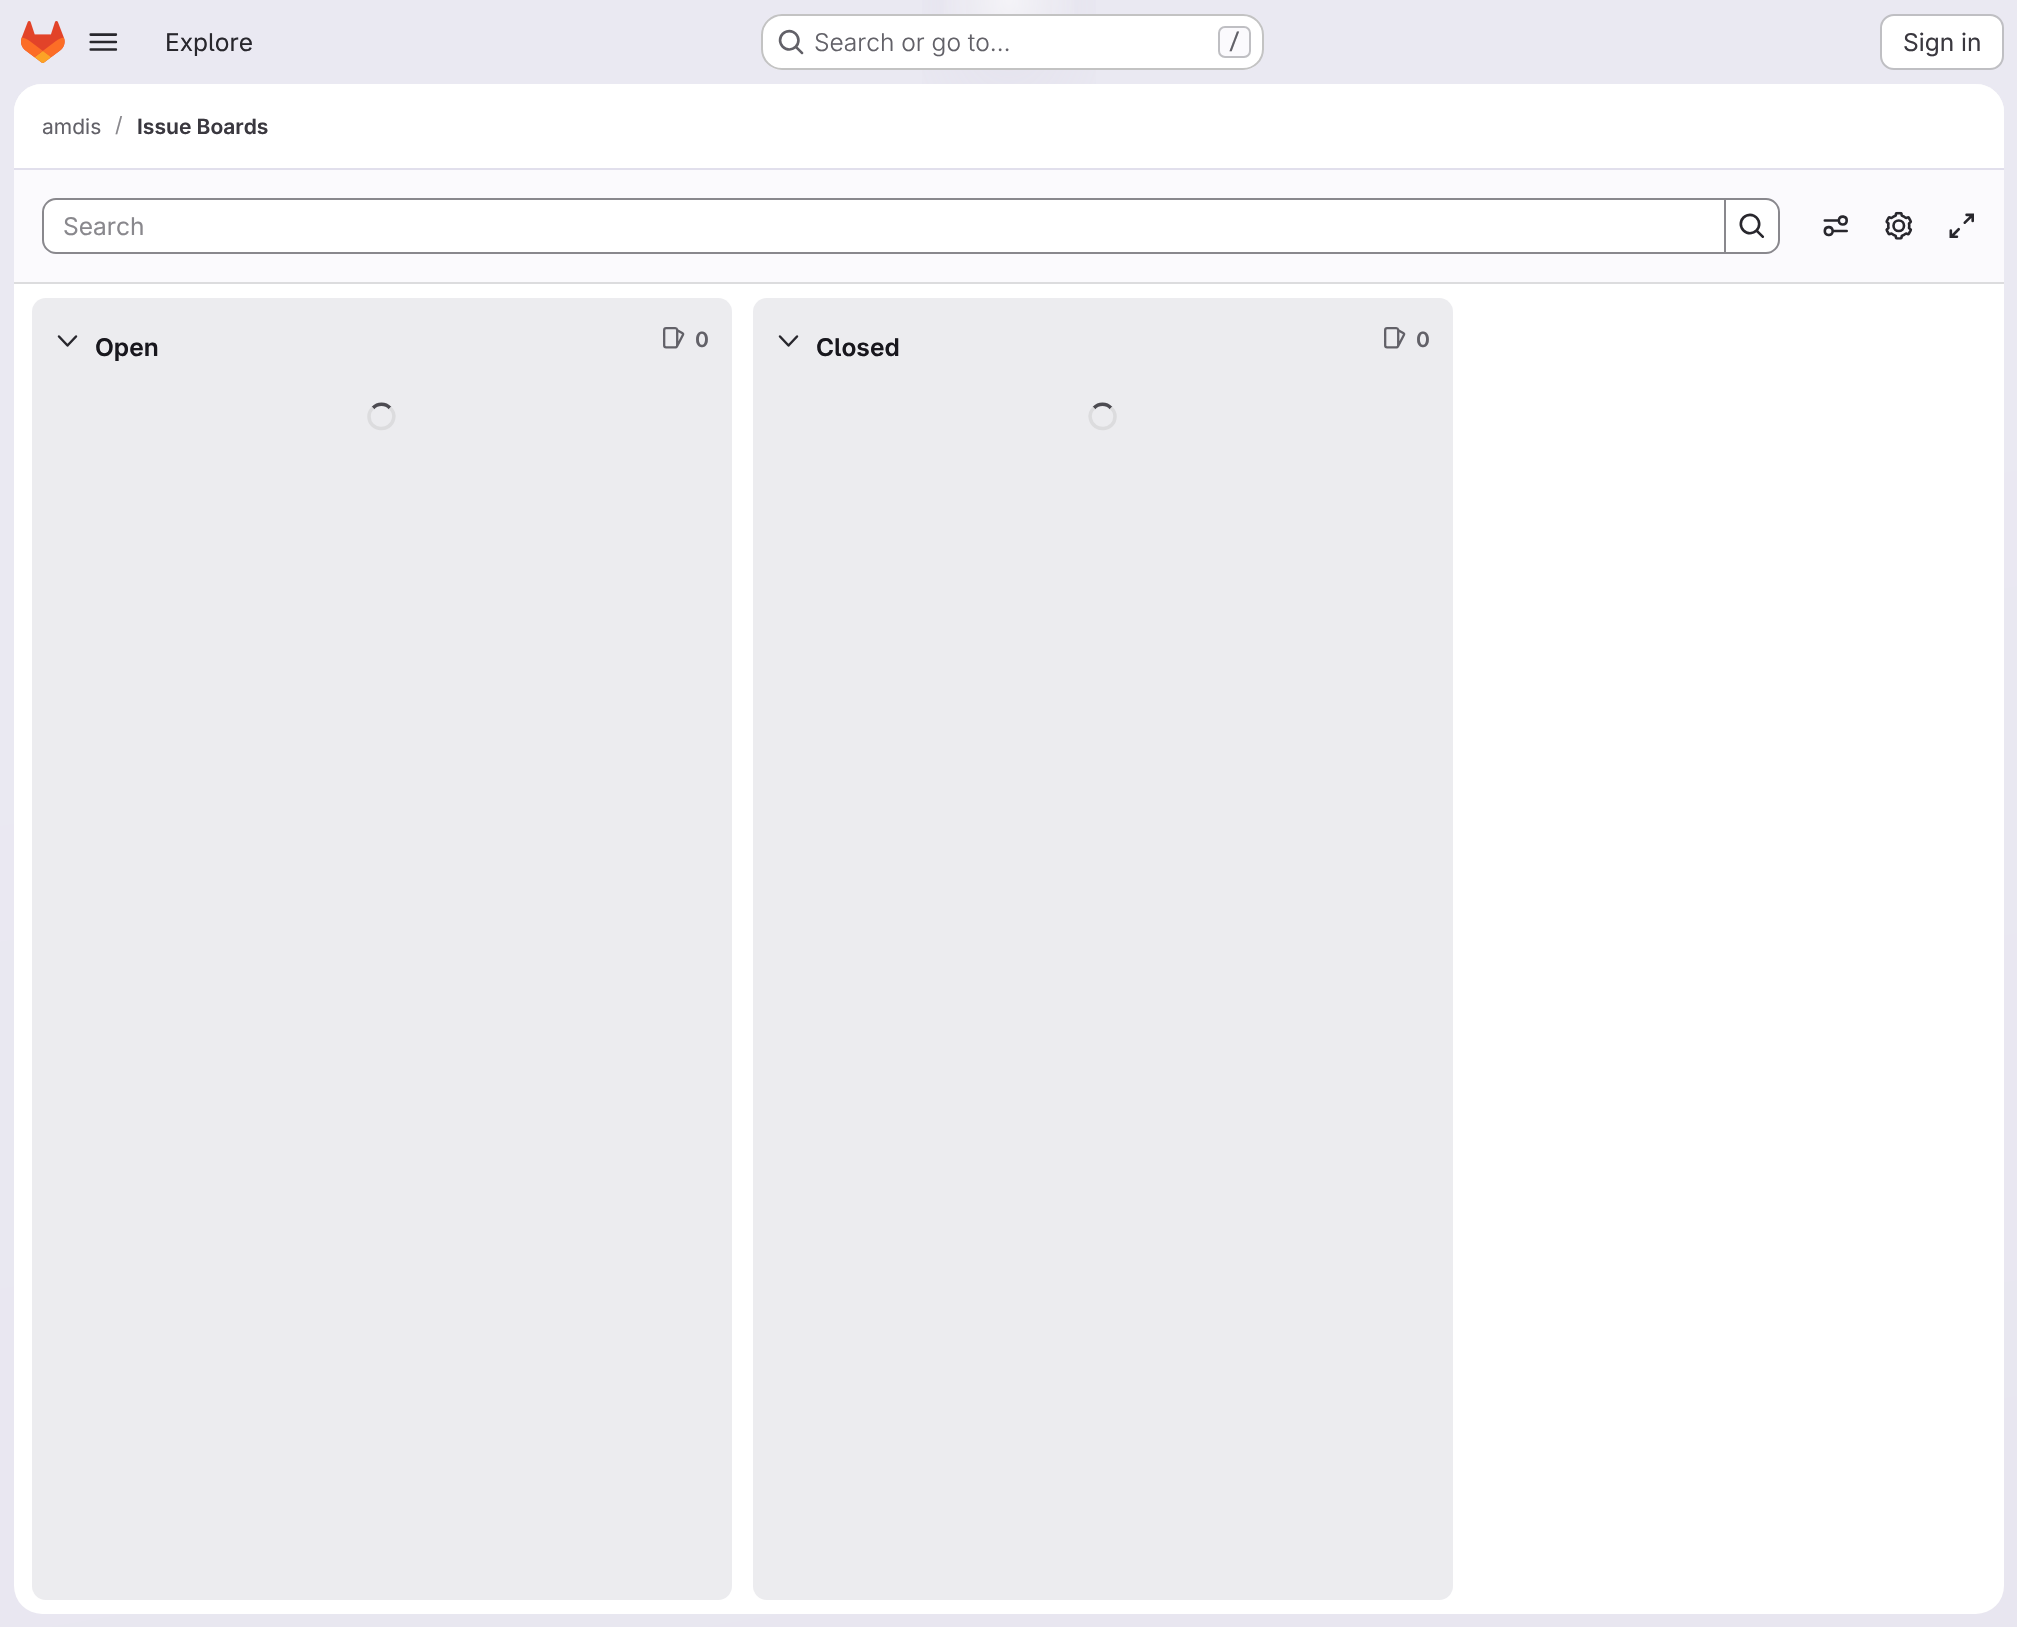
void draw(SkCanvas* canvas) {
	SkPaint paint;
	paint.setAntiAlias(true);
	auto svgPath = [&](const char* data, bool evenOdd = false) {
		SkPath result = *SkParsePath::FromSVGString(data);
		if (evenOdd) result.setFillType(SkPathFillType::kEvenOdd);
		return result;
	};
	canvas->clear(0xffffffff);
	{
		const SkColor colors[] = {0xffe8e6f0, 0xffeae9f2};
		const float stops[] = {0, 0.7};
		const SkPoint ends[] = {{1178, 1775}, {839, -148}};
		paint.setShader(SkGradientShader::MakeLinear(ends, colors, stops, 2, SkTileMode::kClamp));
		paint.setAlpha(255);
	}
	canvas->drawRect(SkRect::MakeXYWH(0, 0, 2017, 1627), paint);
	{
		const SkColor colors[] = {0xffe4e2ed, 0x00e4e2ed};
		const float stops[] = {0, 0.12};
		SkMatrix m = SkMatrix::Translate(1009, 0).preScale(1009, 1628);
		paint.setShader(SkGradientShader::MakeRadial({0, 0}, 1, colors, stops, 2, SkTileMode::kClamp, 0, &m));
		paint.setAlpha(255);
	}
	canvas->drawRect(SkRect::MakeXYWH(922, 0, 174, 84), paint);
	{
		const SkColor colors[] = {0xffe4e2ec, 0x00e4e2ec};
		const float stops[] = {0, 0.09};
		SkMatrix m = SkMatrix::Translate(1009, 0).preScale(1009, 1628);
		paint.setShader(SkGradientShader::MakeRadial({0, 0}, 1, colors, stops, 2, SkTileMode::kClamp, 0, &m));
		paint.setAlpha(255);
	}
	canvas->drawRect(SkRect::MakeXYWH(966, 0, 86, 60), paint);
	{
		const SkColor colors[] = {0x99ffffff, 0x00ffffff};
		const float stops[] = {0, 0.04};
		paint.setShader(SkGradientShader::MakeRadial({1009, 0}, 1915, colors, stops, 2, SkTileMode::kClamp));
		paint.setAlpha(255);
	}
	canvas->drawRect(SkRect::MakeXYWH(944, 0, 130, 14), paint);
	canvas->drawImageRect(SkImages::DeferredFromEncodedData(SkData::MakeFromFileName("img1.png")), SkRect::MakeXYWH(21, 21, 44, 42), SkSamplingOptions());
	canvas->drawImageRect(SkImages::DeferredFromEncodedData(SkData::MakeFromFileName("img2.png")), SkRect::MakeXYWH(89, 33, 29, 18), SkSamplingOptions());
	SkFont f1(fontMgr->matchFamilyStyle("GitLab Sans", SkFontStyle::Normal()), 24.5);
	f1.setSubpixel(true);
	paint.setShader(nullptr);
	paint.setColor(0xff28272d);
	canvas->drawString("Explore", 165, 51, f1, paint);
	paint.setColor(0xffffffff);
	canvas->drawRoundRect(SkRect::MakeXYWH(761, 14, 503, 56), 21, 21, paint);
	paint.setStroke(true);
	paint.setStrokeWidth(2);
	paint.setColor(0x3d050506);
	canvas->drawRoundRect(SkRect::MakeXYWH(762, 15, 501, 54), 20, 20, paint);
	canvas->drawImageRect(SkImages::DeferredFromEncodedData(SkData::MakeFromFileName("img3.png")), SkRect::MakeXYWH(778, 29, 26, 26), SkSamplingOptions());
	SkFont f2(fontMgr->matchFamilyStyle("GitLab Sans", SkFontStyle(300, SkFontStyle::kNormal_Width, SkFontStyle::kUpright_Slant)), 24.5);
	f2.setSubpixel(true);
	paint.setStroke(false);
	paint.setColor(0xff626168);
	canvas->drawString("Search or go to…", 814, 51, f2, paint);
	paint.setColor(0xfffbfafd);
	canvas->drawRoundRect(SkRect::MakeXYWH(1219, 27, 31, 30), 6, 6, paint);
	paint.setStroke(true);
	paint.setColor(0xffbfbfc3);
	canvas->drawRoundRect(SkRect::MakeXYWH(1219, 27, 31, 30), 6, 6, paint);
	SkFont f3(fontMgr->matchFamilyStyle("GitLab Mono", SkFontStyle(500, SkFontStyle::kNormal_Width, SkFontStyle::kUpright_Slant)), 21);
	f3.setSubpixel(true);
	paint.setStroke(false);
	paint.setColor(0xff626168);
	canvas->drawString("/", 1228, 49, f3, paint);
	paint.setColor(0xffffffff);
	canvas->drawRoundRect(SkRect::MakeXYWH(1881, 15, 122, 54), 13, 13, paint);
	paint.setStroke(true);
	paint.setColor(0xffbfbfc3);
	canvas->drawRoundRect(SkRect::MakeXYWH(1881, 15, 122, 54), 13, 13, paint);
	paint.setStroke(false);
	paint.setColor(0xff3a383f);
	canvas->drawString("Sign in", 1903, 51, f1, paint);
	paint.setColor(0xffffffff);
	canvas->drawRoundRect(SkRect::MakeXYWH(14, 84, 1990, 1530), 28, 28, paint);
	canvas->drawPath(svgPath("M42 84H1976C1991.5 84 2004 96.5 2004 112V170H14V112C14 96.5 26.5 84 42 84Z"), paint);
	paint.setColor(0xffe1dfec);
	canvas->drawRect(SkRect::MakeXYWH(14, 168, 1990, 2), paint);
	SkFont f4(fontMgr->matchFamilyStyle("GitLab Sans", SkFontStyle::Normal()), 21);
	f4.setSubpixel(true);
	paint.setColor(0xff626168);
	canvas->drawString("amdis", 42, 134, f4, paint);
	paint.setColor(0xff89888d);
	canvas->drawString("/", 115, 132, f4, paint);
	SkFont f5(fontMgr->matchFamilyStyle("GitLab Sans", SkFontStyle(600, SkFontStyle::kNormal_Width, SkFontStyle::kUpright_Slant)), 21);
	f5.setSubpixel(true);
	paint.setColor(0xff3a383f);
	canvas->drawString("Issue Boards", 137, 134, f5, paint);
	paint.setColor(0xfffbfafd);
	canvas->drawRect(SkRect::MakeXYWH(14, 170, 1990, 112), paint);
	paint.setColor(0xffdcdcde);
	canvas->drawRect(SkRect::MakeXYWH(14, 282, 1990, 2), paint);
	paint.setColor(0xffffffff);
	canvas->drawPath(svgPath("M56 199H1725V253H56C49 253 43 247 43 240V212C43 205 49 199 56 199Z"), paint);
	paint.setStroke(true);
	paint.setColor(0xff89888d);
	canvas->drawPath(svgPath("M56 199H1725V253H56C49 253 43 247 43 240V212C43 205 49 199 56 199Z"), paint);
	paint.setStroke(false);
	canvas->drawString("Search", 63, 235, f1, paint);
	paint.setColor(0xffffffff);
	canvas->drawPath(svgPath("M1725 199H1766C1773 199 1779 205 1779 212V240C1779 247 1773 253 1766 253H1725Z"), paint);
	paint.setStroke(true);
	paint.setColor(0xff89888d);
	canvas->drawPath(svgPath("M1725 199H1766C1773 199 1779 205 1779 212V240C1779 247 1773 253 1766 253H1725Z"), paint);
	canvas->drawImageRect(SkImages::DeferredFromEncodedData(SkData::MakeFromFileName("img4.png")), SkRect::MakeXYWH(1739, 213, 26, 25), SkSamplingOptions());
	canvas->drawImageRect(SkImages::DeferredFromEncodedData(SkData::MakeFromFileName("img5.png")), SkRect::MakeXYWH(1823, 215, 25, 22), SkSamplingOptions());
	canvas->drawImageRect(SkImages::DeferredFromEncodedData(SkData::MakeFromFileName("img6.png")), SkRect::MakeXYWH(1885, 211, 28, 29), SkSamplingOptions());
	canvas->drawImageRect(SkImages::DeferredFromEncodedData(SkData::MakeFromFileName("img7.png")), SkRect::MakeXYWH(1949, 213, 25, 25), SkSamplingOptions());
	paint.setStroke(false);
	paint.setColor(0xffececef);
	canvas->drawRoundRect(SkRect::MakeXYWH(32, 298, 700, 1302), 14, 14, paint);
	paint.setStroke(true);
	paint.setStrokeWidth(2.5);
	paint.setStrokeCap(SkPaint::kRound_Cap);
	paint.setStrokeJoin(SkPaint::kRound_Join);
	paint.setColor(0xff28272d);
	canvas->drawPath(svgPath("M59 336.5L67.5 345.5L76 336.5"), paint);
	SkFont f6(fontMgr->matchFamilyStyle("GitLab Sans", SkFontStyle(600, SkFontStyle::kNormal_Width, SkFontStyle::kUpright_Slant)), 24.5);
	f6.setSubpixel(true);
	paint.setStroke(false);
	paint.setColor(0xff18171d);
	canvas->drawString("Open", 95, 356, f6, paint);
	canvas->drawImageRect(SkImages::DeferredFromEncodedData(SkData::MakeFromFileName("img8.png")), SkRect::MakeXYWH(663, 327, 22, 22), SkSamplingOptions());
	paint.setColor(0xff626168);
	canvas->drawString("0", 695, 347, f5, paint);
	paint.setStroke(true);
	paint.setStrokeWidth(3.5);
	paint.setStrokeCap(SkPaint::kButt_Cap);
	paint.setStrokeJoin(SkPaint::kMiter_Join);
	paint.setColor(0xff4c4b51);
	canvas->drawPath(svgPath("M373 408C377.5 403 385.5 403 390 408"), paint);
	paint.setColor(0xffdcdcde);
	canvas->drawPath(svgPath("M390 408C393 410.5 394.5 415 393.5 419C390.5 433 369 431 369 416.5C369 413.5 370.5 410 373 408"), paint);
	paint.setStroke(false);
	paint.setColor(0xffececef);
	canvas->drawRoundRect(SkRect::MakeXYWH(753, 298, 700, 1302), 14, 14, paint);
	paint.setStroke(true);
	paint.setStrokeWidth(2.5);
	paint.setStrokeCap(SkPaint::kRound_Cap);
	paint.setStrokeJoin(SkPaint::kRound_Join);
	paint.setColor(0xff28272d);
	canvas->drawPath(svgPath("M780 336.5L788.5 345.5L797 336.5"), paint);
	paint.setStroke(false);
	paint.setColor(0xff18171d);
	canvas->drawString("Closed", 816, 356, f6, paint);
	canvas->drawImageRect(SkImages::DeferredFromEncodedData(SkData::MakeFromFileName("img8.png")), SkRect::MakeXYWH(1384, 327, 22, 22), SkSamplingOptions());
	paint.setColor(0xff626168);
	canvas->drawString("0", 1416, 347, f5, paint);
	paint.setStroke(true);
	paint.setStrokeWidth(3.5);
	paint.setStrokeCap(SkPaint::kButt_Cap);
	paint.setStrokeJoin(SkPaint::kMiter_Join);
	paint.setColor(0xff4c4b51);
	canvas->drawPath(svgPath("M1094 408C1098.5 403 1106.5 403 1111 408"), paint);
	paint.setColor(0xffdcdcde);
	canvas->drawPath(svgPath("M1111 408C1113.5 410 1115 413.5 1115 416.5C1115 431 1093.5 433 1090.5 419C1089.5 415 1091 410.5 1094 408"), paint);
}
